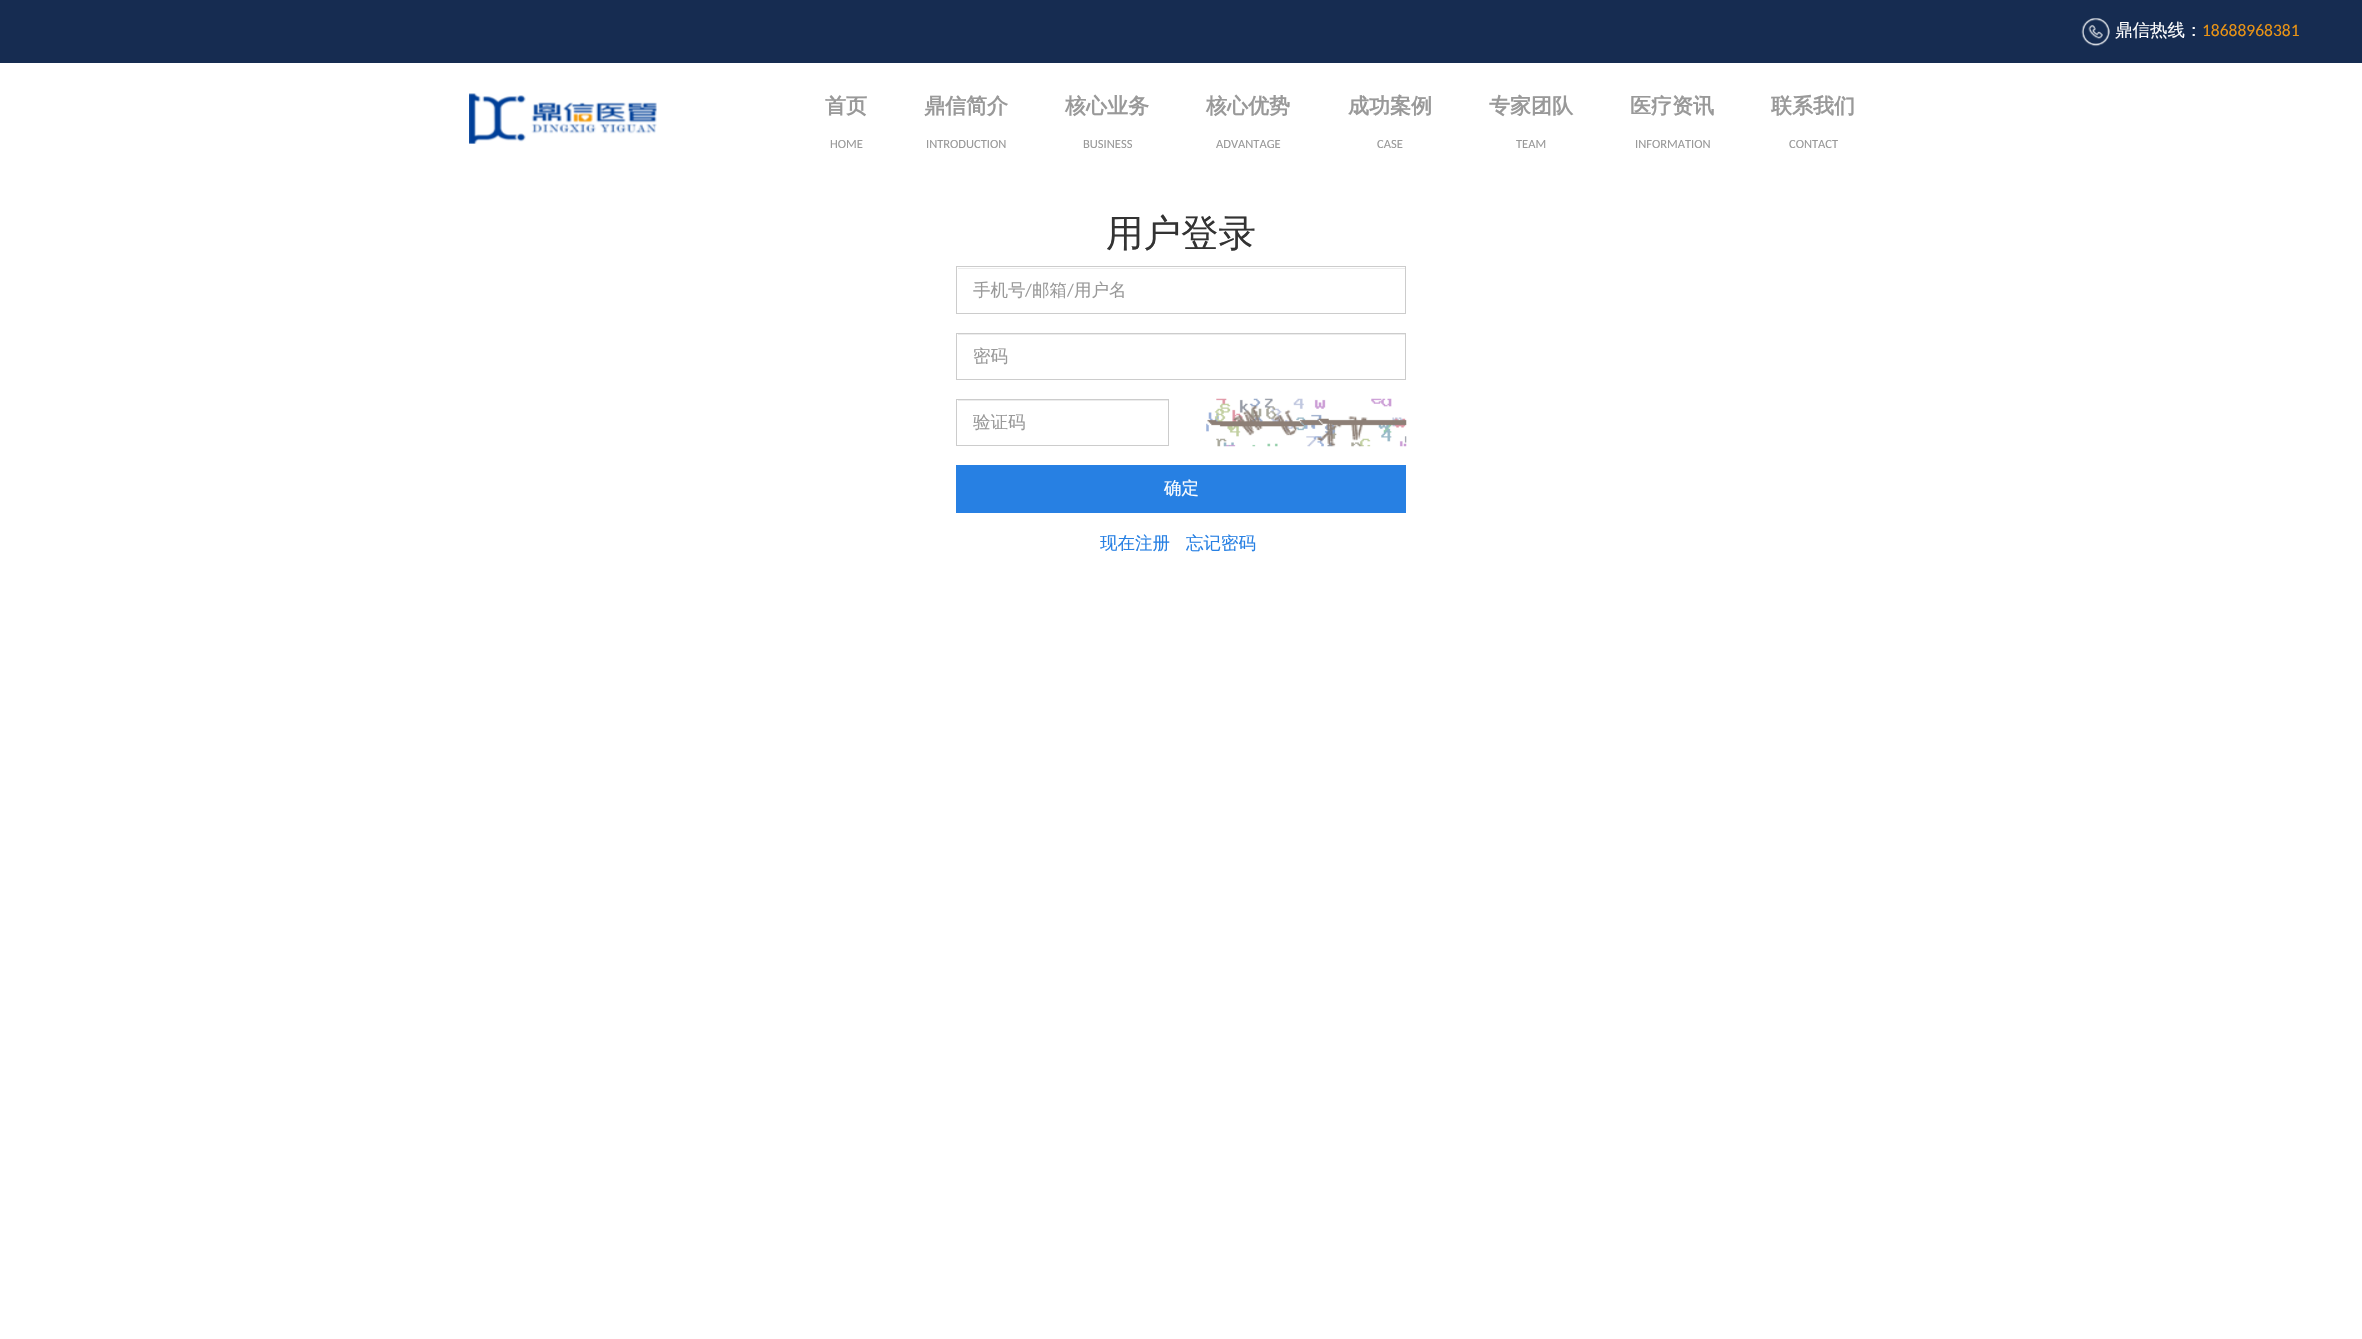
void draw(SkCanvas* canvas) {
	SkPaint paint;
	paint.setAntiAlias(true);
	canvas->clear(0xffffffff);
	paint.setColor(0xff162c51);
	canvas->drawRect(SkRect::MakeXYWH(0, 0, 2362, 63), paint);
	canvas->drawImageRect(SkImages::DeferredFromEncodedData(SkData::MakeFromFileName("img1.png")), SkRect::MakeXYWH(2081, 18, 29, 29), SkSamplingOptions());
	SkFont f1(fontMgr->matchFamilyStyle("WenQuanYi Zen Hei", SkFontStyle(500, SkFontStyle::kNormal_Width, SkFontStyle::kUpright_Slant)), 17.5);
	f1.setSubpixel(true);
	paint.setColor(0xffffffff);
	canvas->drawString("鼎信热线：", 2115, 36, f1, paint);
	SkFont f2(fontMgr->matchFamilyStyle("Carlito", SkFontStyle::Normal()), 17.5);
	f2.setSubpixel(true);
	paint.setColor(0xffe99315);
	canvas->drawString("18688968381", 2202, 36, f2, paint);
	canvas->drawImageRect(SkImages::DeferredFromEncodedData(SkData::MakeFromFileName("img2.png")), SkRect::MakeXYWH(469, 93, 188, 51), SkSamplingOptions());
	SkFont f3(fontMgr->matchFamilyStyle("WenQuanYi Zen Hei", SkFontStyle::Bold()), 21);
	f3.setSubpixel(true);
	paint.setColor(0xff999999);
	canvas->drawString("首页", 825, 113, f3, paint);
	SkFont f4(fontMgr->matchFamilyStyle("Carlito", SkFontStyle::Normal()), 12.5);
	f4.setSubpixel(true);
	canvas->drawString("HOME", 830, 148, f4, paint);
	canvas->drawString("鼎信简介", 924, 113, f3, paint);
	canvas->drawString("INTRODUCTION", 926, 148, f4, paint);
	canvas->drawString("核心业务", 1065, 113, f3, paint);
	canvas->drawString("BUSINESS", 1083, 148, f4, paint);
	canvas->drawString("核心优势", 1206, 113, f3, paint);
	canvas->drawString("ADVANTAGE", 1216, 148, f4, paint);
	canvas->drawString("成功案例", 1348, 113, f3, paint);
	canvas->drawString("CASE", 1377, 148, f4, paint);
	canvas->drawString("专家团队", 1489, 113, f3, paint);
	canvas->drawString("TEAM", 1516, 148, f4, paint);
	canvas->drawString("医疗资讯", 1630, 113, f3, paint);
	canvas->drawString("INFORMATION", 1635, 148, f4, paint);
	canvas->drawString("联系我们", 1771, 113, f3, paint);
	canvas->drawString("CONTACT", 1789, 148, f4, paint);
	SkFont f5(fontMgr->matchFamilyStyle("WenQuanYi Zen Hei", SkFontStyle(500, SkFontStyle::kNormal_Width, SkFontStyle::kUpright_Slant)), 37.5);
	f5.setSubpixel(true);
	paint.setColor(0xff333333);
	canvas->drawString("用户登录", 1106, 246, f5, paint);
	paint.setColor(0xffececec);
	canvas->drawRect(SkRect::MakeXYWH(958, 268, 447, 1), paint);
	paint.setStroke(true);
	paint.setStrokeWidth(1);
	paint.setColor(0xffcccccc);
	canvas->drawRect(SkRect::MakeXYWH(956.5, 266.5, 449, 47), paint);
	paint.setStroke(false);
	paint.setColor(0xff999999);
	canvas->drawString("手机号", 973, 296, f1, paint);
	canvas->drawString("/", 1025, 296, f2, paint);
	canvas->drawString("邮箱", 1032, 296, f1, paint);
	canvas->drawString("/", 1067, 296, f2, paint);
	canvas->drawString("用户名", 1074, 296, f1, paint);
	paint.setColor(0xffececec);
	canvas->drawRect(SkRect::MakeXYWH(958, 334, 447, 1), paint);
	paint.setStroke(true);
	paint.setColor(0xffcccccc);
	canvas->drawRect(SkRect::MakeXYWH(956.5, 333.5, 449, 46), paint);
	paint.setStroke(false);
	paint.setColor(0xff999999);
	canvas->drawString("密码", 973, 362, f1, paint);
	paint.setColor(0xffececec);
	canvas->drawRect(SkRect::MakeXYWH(958, 400, 210, 1), paint);
	paint.setStroke(true);
	paint.setColor(0xffcccccc);
	canvas->drawRect(SkRect::MakeXYWH(956.5, 399.5, 212, 46), paint);
	paint.setStroke(false);
	paint.setColor(0xff999999);
	canvas->drawString("验证码", 973, 428, f1, paint);
	canvas->drawImageRect(SkImages::DeferredFromEncodedData(SkData::MakeFromFileName("img3.png")), SkRect::MakeXYWH(1206, 398, 201, 49), SkSamplingOptions());
	paint.setColor(0xff2780e3);
	canvas->drawRect(SkRect::MakeXYWH(956, 465, 450, 48), paint);
	paint.setColor(0xffffffff);
	canvas->drawString("确定", 1164, 494, f1, paint);
	paint.setColor(0xff2780e3);
	canvas->drawString("现在注册", 1100, 549, f1, paint);
	canvas->drawString("忘记密码", 1186, 549, f1, paint);
}
